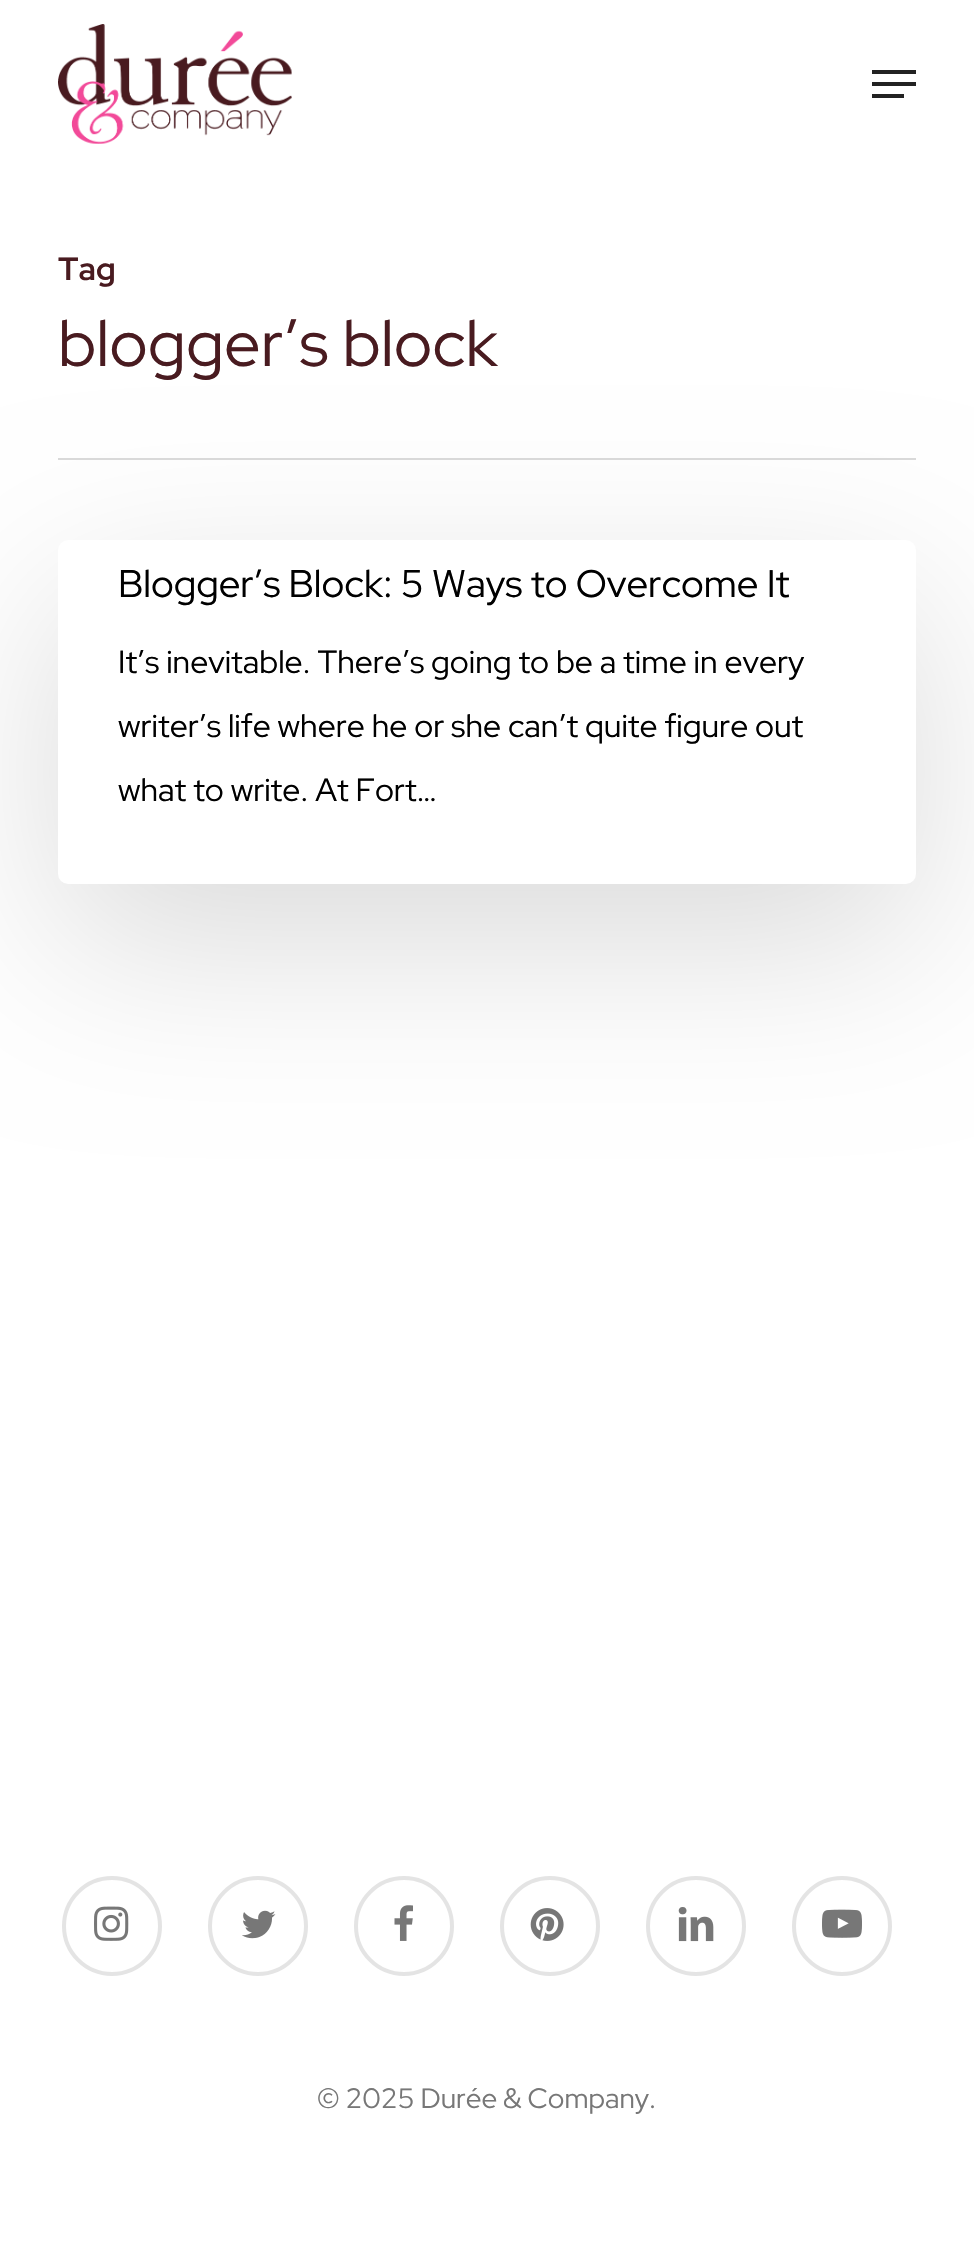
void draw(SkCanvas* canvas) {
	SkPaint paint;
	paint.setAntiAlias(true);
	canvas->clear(0xffffffff);
	canvas->drawImageRect(SkImages::DeferredFromEncodedData(SkData::MakeFromFileName("img1.png")), SkRect::MakeXYWH(58, 24, 234, 120), SkSamplingOptions());
	paint.setColor(0xff222222);
	canvas->drawRect(SkRect::MakeXYWH(872, 70, 44, 4), paint);
	canvas->drawRect(SkRect::MakeXYWH(872, 94, 32, 4), paint);
	canvas->drawRect(SkRect::MakeXYWH(872, 82, 44, 4), paint);
	paint.setColor(0x24000000);
	paint.setMaskFilter(SkMaskFilter::MakeBlur(kNormal_SkBlurStyle, 90));
	canvas->drawRoundRect(SkRect::MakeXYWH(58, 600, 858, 344), 10, 10, paint);
	paint.setMaskFilter(nullptr);
	paint.setColor(0xffd9d9d9);
	canvas->drawRect(SkRect::MakeXYWH(58, 458, 858, 2), paint);
	SkFont f1(fontMgr->matchFamilyStyle("Red Hat Display", SkFontStyle::Bold()), 32);
	f1.setSubpixel(true);
	paint.setColor(0xff491b20);
	canvas->drawString("Tag", 58, 280, f1, paint);
	SkFont f2(fontMgr->matchFamilyStyle("Red Hat Display", SkFontStyle::Normal()), 65);
	f2.setSubpixel(true);
	canvas->drawString("blogger’s block", 58, 366, f2, paint);
	paint.setColor(0xffffffff);
	canvas->drawRoundRect(SkRect::MakeXYWH(58, 540, 858, 344), 10, 10, paint);
	SkFont f3(fontMgr->matchFamilyStyle("Red Hat Display", SkFontStyle::Normal()), 38.4);
	f3.setSubpixel(true);
	paint.setColor(0xff000000);
	canvas->drawString("Blogger’s Block: 5 Ways to Overcome It", 118, 597, f3, paint);
	SkFont f4(fontMgr->matchFamilyStyle("Red Hat Display", SkFontStyle::Normal()), 32);
	f4.setSubpixel(true);
	canvas->drawString("It’s inevitable. There’s going to be a time in every", 118, 673, f4, paint);
	canvas->drawString("writer’s life where he or she can’t quite figure out", 118, 737, f4, paint);
	canvas->drawString("what to write. At Fort…", 118, 801, f4, paint);
	canvas->drawImageRect(SkImages::DeferredFromEncodedData(SkData::MakeFromFileName("img2.png")), SkRect::MakeXYWH(94, 1906, 35, 35), SkSamplingOptions());
	paint.setStroke(true);
	paint.setStrokeWidth(4);
	paint.setColor(0xffe4e4e4);
	canvas->drawCircle(112, 1926, 48, paint);
	canvas->drawImageRect(SkImages::DeferredFromEncodedData(SkData::MakeFromFileName("img3.png")), SkRect::MakeXYWH(242, 1910, 34, 29), SkSamplingOptions());
	canvas->drawCircle(258, 1926, 48, paint);
	canvas->drawImageRect(SkImages::DeferredFromEncodedData(SkData::MakeFromFileName("img4.png")), SkRect::MakeXYWH(394, 1905, 19, 36), SkSamplingOptions());
	canvas->drawCircle(404, 1926, 48, paint);
	canvas->drawImageRect(SkImages::DeferredFromEncodedData(SkData::MakeFromFileName("img5.png")), SkRect::MakeXYWH(530, 1908, 34, 33), SkSamplingOptions());
	canvas->drawCircle(550, 1926, 48, paint);
	canvas->drawImageRect(SkImages::DeferredFromEncodedData(SkData::MakeFromFileName("img6.png")), SkRect::MakeXYWH(678, 1907, 36, 35), SkSamplingOptions());
	canvas->drawCircle(696, 1926, 48, paint);
	canvas->drawImageRect(SkImages::DeferredFromEncodedData(SkData::MakeFromFileName("img7.png")), SkRect::MakeXYWH(822, 1909, 40, 29), SkSamplingOptions());
	canvas->drawCircle(842, 1926, 48, paint);
	SkFont f5(fontMgr->matchFamilyStyle("Red Hat Display", SkFontStyle::Normal()), 28);
	f5.setSubpixel(true);
	paint.setStroke(false);
	paint.setColor(0xff777777);
	canvas->drawString("© 2025 Durée & Company.", 317, 2108, f5, paint);
}
